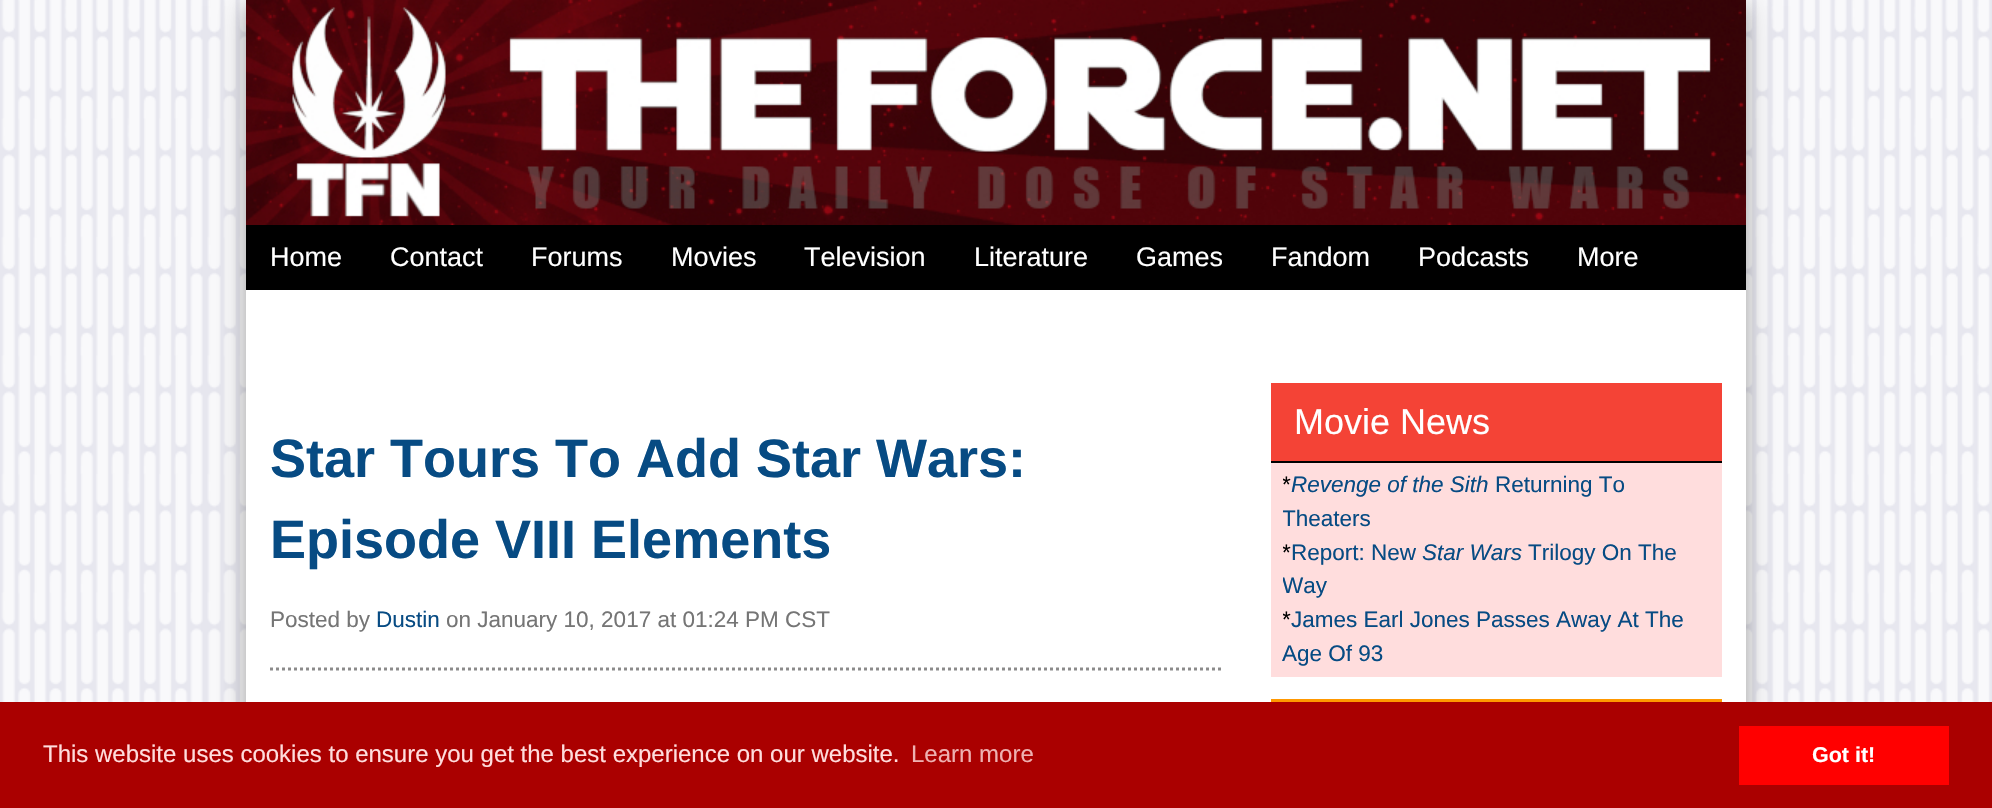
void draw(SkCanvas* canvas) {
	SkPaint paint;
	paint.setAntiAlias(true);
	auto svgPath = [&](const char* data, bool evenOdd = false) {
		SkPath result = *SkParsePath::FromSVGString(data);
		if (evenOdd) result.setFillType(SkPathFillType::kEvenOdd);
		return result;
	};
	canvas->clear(0xffffffff);
	canvas->drawImageRect(SkImages::DeferredFromEncodedData(SkData::MakeFromFileName("img1.png")), SkRect::MakeXYWH(0, 0, 1992, 702), SkSamplingOptions());
	paint.setColor(0x30000000);
	paint.setMaskFilter(SkMaskFilter::MakeBlur(kNormal_SkBlurStyle, 15));
	canvas->drawRect(SkRect::MakeXYWH(246, 6, 1500, 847), paint);
	paint.setMaskFilter(nullptr);
	paint.setColor(0x33000000);
	paint.setMaskFilter(SkMaskFilter::MakeBlur(kNormal_SkBlurStyle, 7.5));
	canvas->drawRect(SkRect::MakeXYWH(246, 6, 1500, 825), paint);
	paint.setMaskFilter(nullptr);
	canvas->drawImageRect(SkImages::DeferredFromEncodedData(SkData::MakeFromFileName("img2.png")), SkRect::MakeXYWH(246, 0, 1500, 225), SkSamplingOptions());
	paint.setColor(0xff000000);
	canvas->drawRect(SkRect::MakeXYWH(246, 225, 1500, 65), paint);
	SkFont f1(fontMgr->matchFamilyStyle("Liberation Sans", SkFontStyle::Normal()), 27);
	f1.setSubpixel(true);
	paint.setColor(0xffffffff);
	canvas->drawString("Home", 270, 266, f1, paint);
	canvas->drawString("Contact", 390, 266, f1, paint);
	canvas->drawString("Forums", 531, 266, f1, paint);
	canvas->drawString("Movies", 671, 266, f1, paint);
	canvas->drawString("Television", 804, 266, f1, paint);
	canvas->drawString("Literature", 974, 266, f1, paint);
	canvas->drawString("Games", 1136, 266, f1, paint);
	canvas->drawString("Fandom", 1271, 266, f1, paint);
	canvas->drawString("Podcasts", 1418, 266, f1, paint);
	canvas->drawString("More", 1577, 266, f1, paint);
	canvas->drawRect(SkRect::MakeXYWH(246, 290, 1500, 412), paint);
	SkFont f2(fontMgr->matchFamilyStyle("Liberation Sans", SkFontStyle::Bold()), 54);
	f2.setSubpixel(true);
	paint.setColor(0xff074b83);
	canvas->drawString("Star Tours To Add Star Wars:", 270, 477, f2, paint);
	canvas->drawString("Episode VIII Elements", 270, 558, f2, paint);
	SkFont f3(fontMgr->matchFamilyStyle("Liberation Sans", SkFontStyle::Normal()), 22.5);
	f3.setSubpixel(true);
	paint.setColor(0xff757575);
	canvas->drawString("Posted by", 270, 627, f3, paint);
	paint.setColor(0xff074b83);
	canvas->drawString("Dustin", 376, 627, f3, paint);
	paint.setColor(0xff757575);
	canvas->drawString("on January 10, 2017 at 01:24 PM CST", 446, 627, f3, paint);
	paint.setStroke(true);
	paint.setStrokeWidth(3);
	paint.setColor(0xff8c8b8b);
	paint.setPathEffect(SkDashPathEffect::Make({{3, 3}}, 0));
	canvas->drawPath(svgPath("M270 669H1222.5"), paint);
	paint.setPathEffect(nullptr);
	paint.setStroke(false);
	paint.setColor(0xfff44336);
	canvas->drawRect(SkRect::MakeXYWH(1271, 383, 451, 78), paint);
	paint.setColor(0xff000000);
	canvas->drawRect(SkRect::MakeXYWH(1271, 461, 451, 2), paint);
	SkFont f4(fontMgr->matchFamilyStyle("Liberation Sans", SkFontStyle::Normal()), 36);
	f4.setSubpixel(true);
	paint.setColor(0xffffffff);
	canvas->drawString("Movie News", 1294, 434, f4, paint);
	paint.setColor(0xffffdddd);
	canvas->drawRect(SkRect::MakeXYWH(1271, 463, 451, 214), paint);
	canvas->save();
	canvas->clipRect(SkRect::MakeXYWH(1283, 468, 427, 68));
	paint.setColor(0xff000000);
	canvas->drawString("*", 1282, 492, f3, paint);
	canvas->restore();
	SkFont f5(fontMgr->matchFamilyStyle("Liberation Sans", SkFontStyle::Italic()), 22.5);
	f5.setSubpixel(true);
	paint.setColor(0xff074b83);
	canvas->drawString("Revenge of the Sith", 1291, 492, f5, paint);
	canvas->drawString("Returning To", 1495, 492, f3, paint);
	canvas->save();
	canvas->clipRect(SkRect::MakeXYWH(1283, 468, 427, 68));
	canvas->drawString("Theaters", 1282, 526, f3, paint);
	canvas->restore();
	canvas->save();
	canvas->clipRect(SkRect::MakeXYWH(1283, 536, 427, 67));
	paint.setColor(0xff000000);
	canvas->drawString("*", 1282, 560, f3, paint);
	canvas->restore();
	paint.setColor(0xff074b83);
	canvas->drawString("Report: New", 1291, 560, f3, paint);
	canvas->drawString("Star Wars", 1422, 560, f5, paint);
	canvas->drawString("Trilogy On The", 1528, 560, f3, paint);
	canvas->save();
	canvas->clipRect(SkRect::MakeXYWH(1283, 536, 427, 67));
	canvas->drawString("Way", 1282, 593, f3, paint);
	canvas->restore();
	canvas->save();
	canvas->clipRect(SkRect::MakeXYWH(1283, 603, 427, 68));
	paint.setColor(0xff000000);
	canvas->drawString("*", 1282, 627, f3, paint);
	canvas->restore();
	paint.setColor(0xff074b83);
	canvas->drawString("James Earl Jones Passes Away At The", 1291, 627, f3, paint);
	canvas->drawString("Age Of 93", 1282, 661, f3, paint);
	paint.setColor(0xffff9800);
	canvas->drawRect(SkRect::MakeXYWH(1271, 699, 451, 3), paint);
	paint.setColor(0xffaa0000);
	canvas->drawRect(SkRect::MakeXYWH(0, 702, 1992, 106), paint);
	SkFont f6(fontMgr->matchFamilyStyle("Liberation Sans", SkFontStyle::Normal()), 24);
	f6.setSubpixel(true);
	paint.setColor(0xffffdddd);
	canvas->drawString("This website uses cookies to ensure you get the best experience on our website.", 43, 762, f6, paint);
	paint.setColor(0xffeeb1b1);
	canvas->drawString("Learn more", 911, 762, f6, paint);
	paint.setColor(0xffff0000);
	canvas->drawRect(SkRect::MakeXYWH(1739, 726, 210, 59), paint);
	SkFont f7(fontMgr->matchFamilyStyle("Liberation Sans", SkFontStyle::Bold()), 21.5);
	f7.setSubpixel(true);
	paint.setColor(0xffffffff);
	canvas->drawString("Got it!", 1812, 762, f7, paint);
}
